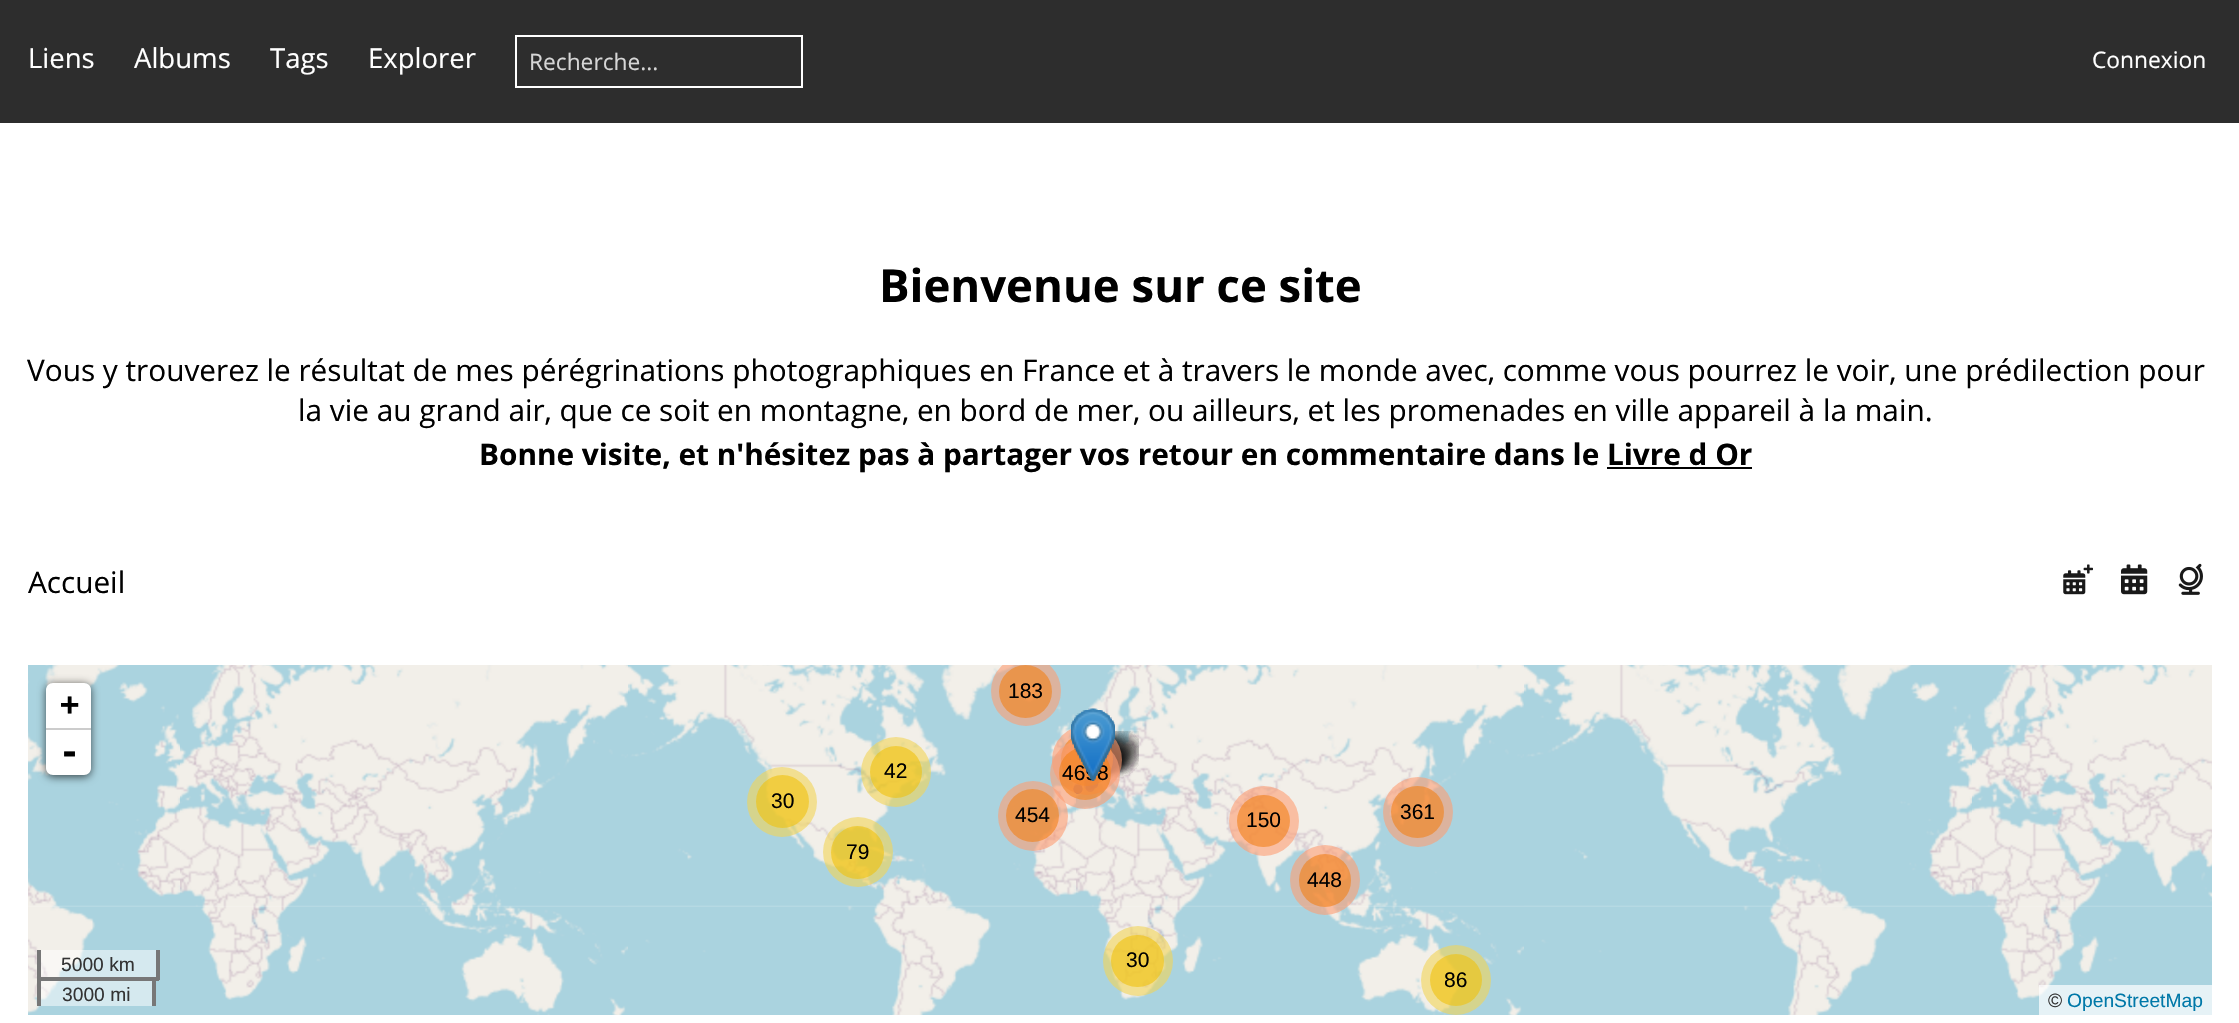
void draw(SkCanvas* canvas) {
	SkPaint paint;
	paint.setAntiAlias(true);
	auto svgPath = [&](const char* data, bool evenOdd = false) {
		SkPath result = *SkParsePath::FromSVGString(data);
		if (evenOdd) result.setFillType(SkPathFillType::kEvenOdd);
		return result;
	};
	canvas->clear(0xffffffff);
	paint.setColor(0xff2d2d2d);
	canvas->drawRect(SkRect::MakeXYWH(0, 0, 2239, 123), paint);
	SkFont f1(fontMgr->matchFamilyStyle("Open Sans", SkFontStyle::Normal()), 27.5);
	f1.setSubpixel(true);
	paint.setColor(0xffffffff);
	canvas->drawString("Liens", 28, 68, f1, paint);
	canvas->drawString("Albums", 134, 68, f1, paint);
	canvas->drawString("Tags", 270, 68, f1, paint);
	canvas->drawString("Explorer", 368, 68, f1, paint);
	paint.setStroke(true);
	paint.setStrokeWidth(2);
	canvas->drawRect(SkRect::MakeXYWH(516, 36, 286, 51), paint);
	SkFont f2(fontMgr->matchFamilyStyle("Open Sans", SkFontStyle::Normal()), 22.75);
	f2.setSubpixel(true);
	paint.setStroke(false);
	paint.setColor(0xffd6d6d6);
	canvas->drawString("Recherche...", 529, 70, f2, paint);
	paint.setColor(0xffffffff);
	canvas->drawString("Connexion", 2092, 68, f2, paint);
	SkFont f3(fontMgr->matchFamilyStyle("Open Sans", SkFontStyle::Bold()), 45.5);
	f3.setSubpixel(true);
	paint.setColor(0xff000000);
	canvas->drawString("Bienvenue sur ce site", 879, 302, f3, paint);
	SkFont f4(fontMgr->matchFamilyStyle("Open Sans", SkFontStyle::Normal()), 29.75);
	f4.setSubpixel(true);
	canvas->drawString("Vous y trouverez le résultat de mes pérégrinations photographiques en France et à travers le monde avec, comme vous pourrez le voir, une prédilection pour", 27, 381, f4, paint);
	canvas->drawString("la vie au grand air, que ce soit en montagne, en bord de mer, ou ailleurs, et les promenades en ville appareil à la main.", 298, 421, f4, paint);
	SkFont f5(fontMgr->matchFamilyStyle("Open Sans", SkFontStyle::Bold()), 29.75);
	f5.setSubpixel(true);
	canvas->drawString("Bonne visite, et n'hésitez pas à partager vos retour en commentaire dans le Livre d Or", 479, 465, f5, paint);
	canvas->drawRect(SkRect::MakeXYWH(1607, 467, 145, 2), paint);
	canvas->drawString("Accueil", 28, 593, f4, paint);
	canvas->drawImageRect(SkImages::DeferredFromEncodedData(SkData::MakeFromFileName("img1.png")), SkRect::MakeXYWH(2063, 564, 30, 31), SkSamplingOptions());
	canvas->drawImageRect(SkImages::DeferredFromEncodedData(SkData::MakeFromFileName("img2.png")), SkRect::MakeXYWH(2121, 564, 27, 31), SkSamplingOptions());
	canvas->drawImageRect(SkImages::DeferredFromEncodedData(SkData::MakeFromFileName("img3.png")), SkRect::MakeXYWH(2178, 563, 25, 32), SkSamplingOptions());
	canvas->drawImageRect(SkImages::DeferredFromEncodedData(SkData::MakeFromFileName("img4.png")), SkRect::MakeXYWH(28, 665, 152, 242), SkSamplingOptions());
	canvas->drawImageRect(SkImages::DeferredFromEncodedData(SkData::MakeFromFileName("img5.png")), SkRect::MakeXYWH(180, 665, 448, 242), SkSamplingOptions());
	canvas->drawImageRect(SkImages::DeferredFromEncodedData(SkData::MakeFromFileName("img6.png")), SkRect::MakeXYWH(628, 665, 448, 242), SkSamplingOptions());
	canvas->drawImageRect(SkImages::DeferredFromEncodedData(SkData::MakeFromFileName("img5.png")), SkRect::MakeXYWH(1076, 665, 448, 242), SkSamplingOptions());
	canvas->drawImageRect(SkImages::DeferredFromEncodedData(SkData::MakeFromFileName("img6.png")), SkRect::MakeXYWH(1524, 665, 448, 242), SkSamplingOptions());
	canvas->drawImageRect(SkImages::DeferredFromEncodedData(SkData::MakeFromFileName("img7.png")), SkRect::MakeXYWH(1972, 665, 240, 242), SkSamplingOptions());
	canvas->drawImageRect(SkImages::DeferredFromEncodedData(SkData::MakeFromFileName("img8.png")), SkRect::MakeXYWH(28, 906, 152, 109), SkSamplingOptions());
	canvas->drawImageRect(SkImages::DeferredFromEncodedData(SkData::MakeFromFileName("img9.png")), SkRect::MakeXYWH(180, 905, 448, 110), SkSamplingOptions());
	canvas->drawImageRect(SkImages::DeferredFromEncodedData(SkData::MakeFromFileName("img10.png")), SkRect::MakeXYWH(628, 906, 448, 109), SkSamplingOptions());
	canvas->drawImageRect(SkImages::DeferredFromEncodedData(SkData::MakeFromFileName("img9.png")), SkRect::MakeXYWH(1076, 905, 448, 110), SkSamplingOptions());
	canvas->drawImageRect(SkImages::DeferredFromEncodedData(SkData::MakeFromFileName("img10.png")), SkRect::MakeXYWH(1524, 906, 448, 109), SkSamplingOptions());
	canvas->drawImageRect(SkImages::DeferredFromEncodedData(SkData::MakeFromFileName("img11.png")), SkRect::MakeXYWH(1972, 905, 240, 110), SkSamplingOptions());
	canvas->save();
	canvas->clipRect(SkRect::MakeXYWH(28, 665, 2184, 350));
	paint.setColor(0x99fd9c73);
	canvas->drawCircle(1026, 691, 35, paint);
	canvas->restore();
	paint.setColor(0x99f18017);
	canvas->drawCircle(1025.5, 691.5, 26.5, paint);
	SkFont f6(fontMgr->matchFamilyStyle("Liberation Sans", SkFontStyle::Normal()), 21);
	f6.setSubpixel(true);
	paint.setColor(0xff000000);
	canvas->drawString("183", 1008, 698, f6, paint);
	canvas->drawImageRect(SkImages::DeferredFromEncodedData(SkData::MakeFromFileName("img34.png")), SkRect::MakeXYWH(1073, 776, 26, 18), SkSamplingOptions());
	canvas->drawImageRect(SkImages::DeferredFromEncodedData(SkData::MakeFromFileName("img23.png")), SkRect::MakeXYWH(1087, 731, 52, 50), SkSamplingOptions());
	canvas->drawImageRect(SkImages::DeferredFromEncodedData(SkData::MakeFromFileName("img24.png")), SkRect::MakeXYWH(1087, 731, 52, 50), SkSamplingOptions());
	canvas->drawImageRect(SkImages::DeferredFromEncodedData(SkData::MakeFromFileName("img25.png")), SkRect::MakeXYWH(1087, 731, 52, 50), SkSamplingOptions());
	canvas->drawImageRect(SkImages::DeferredFromEncodedData(SkData::MakeFromFileName("img26.png")), SkRect::MakeXYWH(1087, 731, 52, 50), SkSamplingOptions());
	canvas->drawImageRect(SkImages::DeferredFromEncodedData(SkData::MakeFromFileName("img27.png")), SkRect::MakeXYWH(1087, 731, 52, 50), SkSamplingOptions());
	canvas->drawImageRect(SkImages::DeferredFromEncodedData(SkData::MakeFromFileName("img28.png")), SkRect::MakeXYWH(1087, 731, 52, 50), SkSamplingOptions());
	canvas->drawImageRect(SkImages::DeferredFromEncodedData(SkData::MakeFromFileName("img29.png")), SkRect::MakeXYWH(1087, 731, 52, 50), SkSamplingOptions());
	canvas->drawImageRect(SkImages::DeferredFromEncodedData(SkData::MakeFromFileName("img30.png")), SkRect::MakeXYWH(1087, 731, 52, 50), SkSamplingOptions());
	canvas->drawImageRect(SkImages::DeferredFromEncodedData(SkData::MakeFromFileName("img31.png")), SkRect::MakeXYWH(1087, 731, 52, 50), SkSamplingOptions());
	canvas->drawImageRect(SkImages::DeferredFromEncodedData(SkData::MakeFromFileName("img32.png")), SkRect::MakeXYWH(1087, 731, 52, 50), SkSamplingOptions());
	canvas->drawImageRect(SkImages::DeferredFromEncodedData(SkData::MakeFromFileName("img33.png")), SkRect::MakeXYWH(1087, 731, 52, 50), SkSamplingOptions());
	paint.setColor(0x99fd9c73);
	canvas->drawCircle(1087, 760, 35, paint);
	paint.setColor(0x99f18017);
	canvas->drawRoundRect(SkRect::MakeXYWH(1061, 733, 52, 53), 26, 26, paint);
	paint.setColor(0x99fd9c73);
	canvas->drawCircle(1085, 774, 35, paint);
	paint.setColor(0x99f18017);
	canvas->drawRoundRect(SkRect::MakeXYWH(1059, 747, 52, 53), 26, 26, paint);
	paint.setColor(0xff000000);
	canvas->drawString("4698", 1062, 780, f6, paint);
	canvas->drawImageRect(SkImages::DeferredFromEncodedData(SkData::MakeFromFileName("img12.png")), SkRect::MakeXYWH(1071, 708, 44, 73), SkSamplingOptions());
	canvas->drawImageRect(SkImages::DeferredFromEncodedData(SkData::MakeFromFileName("img13.png")), SkRect::MakeXYWH(1071, 708, 44, 73), SkSamplingOptions());
	canvas->drawImageRect(SkImages::DeferredFromEncodedData(SkData::MakeFromFileName("img14.png")), SkRect::MakeXYWH(1071, 708, 44, 73), SkSamplingOptions());
	canvas->drawImageRect(SkImages::DeferredFromEncodedData(SkData::MakeFromFileName("img15.png")), SkRect::MakeXYWH(1071, 708, 44, 73), SkSamplingOptions());
	canvas->drawImageRect(SkImages::DeferredFromEncodedData(SkData::MakeFromFileName("img16.png")), SkRect::MakeXYWH(1071, 708, 44, 73), SkSamplingOptions());
	canvas->drawImageRect(SkImages::DeferredFromEncodedData(SkData::MakeFromFileName("img17.png")), SkRect::MakeXYWH(1071, 708, 44, 73), SkSamplingOptions());
	canvas->drawImageRect(SkImages::DeferredFromEncodedData(SkData::MakeFromFileName("img18.png")), SkRect::MakeXYWH(1071, 708, 44, 73), SkSamplingOptions());
	canvas->drawImageRect(SkImages::DeferredFromEncodedData(SkData::MakeFromFileName("img19.png")), SkRect::MakeXYWH(1071, 708, 44, 73), SkSamplingOptions());
	canvas->drawImageRect(SkImages::DeferredFromEncodedData(SkData::MakeFromFileName("img20.png")), SkRect::MakeXYWH(1071, 708, 44, 73), SkSamplingOptions());
	canvas->drawImageRect(SkImages::DeferredFromEncodedData(SkData::MakeFromFileName("img21.png")), SkRect::MakeXYWH(1071, 708, 44, 73), SkSamplingOptions());
	canvas->drawImageRect(SkImages::DeferredFromEncodedData(SkData::MakeFromFileName("img22.png")), SkRect::MakeXYWH(1071, 708, 44, 73), SkSamplingOptions());
	paint.setColor(0x99f1d357);
	canvas->drawCircle(896, 772, 35, paint);
	paint.setColor(0x99f0c20c);
	canvas->drawCircle(896, 772, 26, paint);
	paint.setColor(0xff000000);
	canvas->drawString("42", 884, 778, f6, paint);
	paint.setColor(0x99f1d357);
	canvas->drawCircle(782, 802, 35, paint);
	paint.setColor(0x99f0c20c);
	canvas->drawCircle(782.5, 801.5, 26.5, paint);
	paint.setColor(0xff000000);
	canvas->drawString("30", 771, 808, f6, paint);
	paint.setColor(0x99fd9c73);
	canvas->drawCircle(1033, 816, 35, paint);
	paint.setColor(0x99f18017);
	canvas->drawCircle(1032.5, 815.5, 26.5, paint);
	paint.setColor(0xff000000);
	canvas->drawString("454", 1015, 822, f6, paint);
	paint.setColor(0x99fd9c73);
	canvas->drawCircle(1264, 821, 35, paint);
	paint.setColor(0x99f18017);
	canvas->drawRoundRect(SkRect::MakeXYWH(1237, 795, 53, 52), 26, 26, paint);
	paint.setColor(0xff000000);
	canvas->drawString("150", 1246, 827, f6, paint);
	paint.setColor(0x99fd9c73);
	canvas->drawCircle(1418, 812, 35, paint);
	paint.setColor(0x99f18017);
	canvas->drawRoundRect(SkRect::MakeXYWH(1391, 786, 53, 52), 26, 26, paint);
	paint.setColor(0xff000000);
	canvas->drawString("361", 1400, 819, f6, paint);
	paint.setColor(0x99f1d357);
	canvas->drawCircle(858, 852, 35, paint);
	paint.setColor(0x99f0c20c);
	canvas->drawCircle(857.5, 852.5, 26.5, paint);
	paint.setColor(0xff000000);
	canvas->drawString("79", 846, 859, f6, paint);
	paint.setColor(0x99fd9c73);
	canvas->drawCircle(1325, 880, 35, paint);
	paint.setColor(0x99f18017);
	canvas->drawRoundRect(SkRect::MakeXYWH(1299, 854, 52, 53), 26, 26, paint);
	paint.setColor(0xff000000);
	canvas->drawString("448", 1307, 887, f6, paint);
	paint.setColor(0x99f1d357);
	canvas->drawCircle(1138, 961, 35, paint);
	paint.setColor(0x99f0c20c);
	canvas->drawRoundRect(SkRect::MakeXYWH(1111, 935, 53, 52), 26, 26, paint);
	paint.setColor(0xff000000);
	canvas->drawString("30", 1126, 967, f6, paint);
	paint.setColor(0x99f1d357);
	canvas->drawCircle(1456, 980, 35, paint);
	paint.setColor(0x99f0c20c);
	canvas->drawCircle(1456, 980, 26, paint);
	paint.setColor(0xff000000);
	canvas->drawString("86", 1444, 987, f6, paint);
	paint.setColor(0xa6000000);
	paint.setMaskFilter(SkMaskFilter::MakeBlur(kNormal_SkBlurStyle, 4.5));
	canvas->drawRoundRect(SkRect::MakeXYWH(46, 684, 45, 93), 7, 7, paint);
	paint.setMaskFilter(nullptr);
	paint.setColor(0xffffffff);
	canvas->drawPath(svgPath("M53 683H84C88 683 91 686 91 690V730H46V690C46 686 49 683 53 683Z"), paint);
	paint.setColor(0xffcccccc);
	canvas->drawRect(SkRect::MakeXYWH(46, 728, 45, 2), paint);
	SkFont f7(fontMgr->matchFamilyStyle("DejaVu Sans Mono", SkFontStyle::Bold()), 32);
	f7.setSubpixel(true);
	paint.setColor(0xff000000);
	canvas->drawString("+", 60, 715, f7, paint);
	paint.setColor(0xffffffff);
	canvas->drawPath(svgPath("M46 730H91V768C91 772 88 775 84 775H53C49 775 46 772 46 768Z"), paint);
	SkFont f8(fontMgr->matchFamilyStyle("DejaVu Sans Mono", SkFontStyle::Bold()), 35);
	f8.setSubpixel(true);
	paint.setColor(0xff000000);
	canvas->drawString("-", 59, 764, f8, paint);
	paint.setColor(0x80ffffff);
	canvas->drawRect(SkRect::MakeXYWH(41, 950, 115, 27), paint);
	paint.setColor(0xff777777);
	canvas->drawRect(SkRect::MakeXYWH(156, 950, 4, 30), paint);
	canvas->drawRect(SkRect::MakeXYWH(156, 977, 3, 4), paint);
	canvas->drawRect(SkRect::MakeXYWH(37, 950, 4, 30), paint);
	SkFont f9(fontMgr->matchFamilyStyle("Liberation Sans", SkFontStyle::Normal()), 19.25);
	f9.setSubpixel(true);
	paint.setColor(0xff333333);
	canvas->drawString("5000 km", 61, 971, f9, paint);
	paint.setColor(0x80ffffff);
	canvas->drawRect(SkRect::MakeXYWH(41, 981, 111, 25), paint);
	paint.setColor(0xff777777);
	canvas->drawRect(SkRect::MakeXYWH(37, 977, 119, 4), paint);
	canvas->drawRect(SkRect::MakeXYWH(152, 977, 4, 29), paint);
	canvas->drawRect(SkRect::MakeXYWH(37, 977, 4, 29), paint);
	paint.setColor(0xff333333);
	canvas->drawString("3000 mi", 62, 1001, f9, paint);
	paint.setColor(0xb3ffffff);
	canvas->drawRect(SkRect::MakeXYWH(2039, 985, 173, 30), paint);
	paint.setColor(0xff333333);
	canvas->drawString("©", 2048, 1007, f9, paint);
	paint.setColor(0xff0078a8);
	canvas->drawString("OpenStreetMap", 2067, 1007, f9, paint);
}
